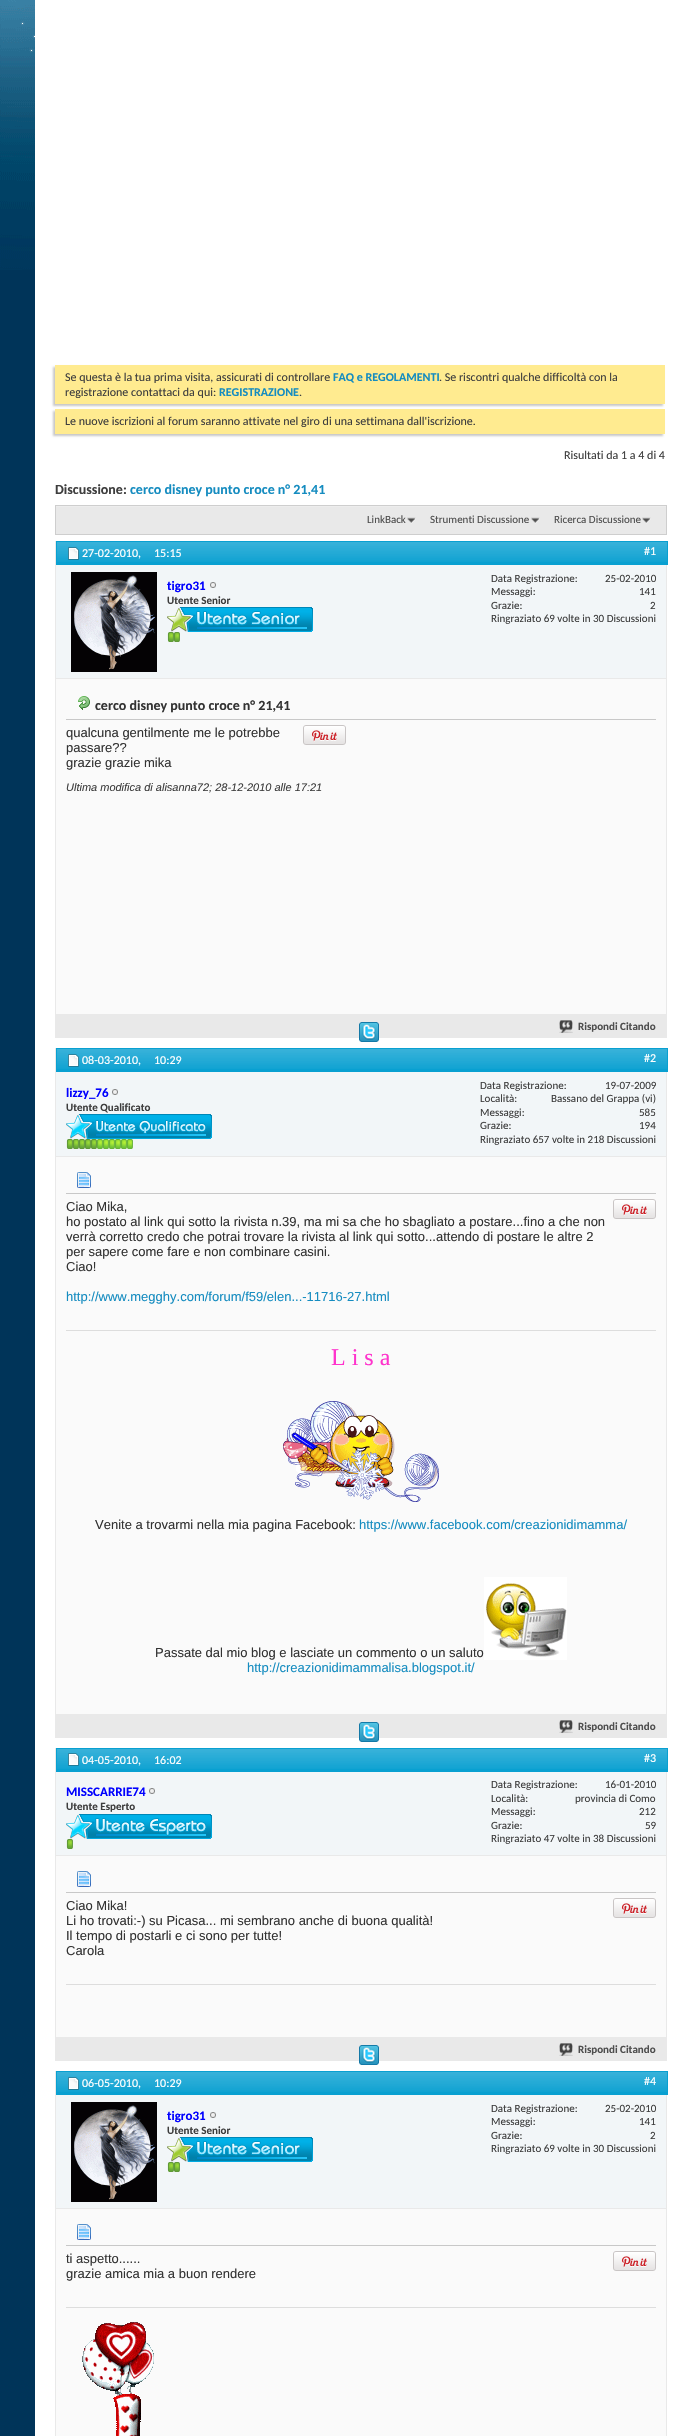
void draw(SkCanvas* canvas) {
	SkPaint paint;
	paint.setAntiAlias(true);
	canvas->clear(0xff003459);
	canvas->drawImageRect(SkImages::DeferredFromEncodedData(SkData::MakeFromFileName("img1.png")), SkRect::MakeXYWH(0, 0, 35, 270), SkSamplingOptions());
	paint.setColor(0xffffffff);
	canvas->drawRect(SkRect::MakeXYWH(35, 0, 642, 2436), paint);
	paint.setColor(0xffc8c8c8);
	paint.setMaskFilter(SkMaskFilter::MakeBlur(kNormal_SkBlurStyle, 1));
	canvas->drawRect(SkRect::MakeXYWH(53, 367, 610, 39), paint);
	paint.setMaskFilter(nullptr);
	paint.setColor(0xffffeb90);
	canvas->drawRect(SkRect::MakeXYWH(55, 365, 610, 39), paint);
	SkFont f1(fontMgr->matchFamilyStyle("Carlito", SkFontStyle::Normal()), 12);
	f1.setSubpixel(true);
	paint.setColor(0xff3e3e3e);
	canvas->drawString("Se questa è la tua prima visita, assicurati di controllare", 65, 381, f1, paint);
	SkFont f2(fontMgr->matchFamilyStyle("Carlito", SkFontStyle::Bold()), 12);
	f2.setSubpixel(true);
	paint.setColor(0xff158cc0);
	canvas->drawString("FAQ e REGOLAMENTI", 333, 381, f2, paint);
	paint.setColor(0xff3e3e3e);
	canvas->drawString(". Se riscontri qualche difficoltà con la", 439, 381, f1, paint);
	canvas->drawString("registrazione contattaci da qui:", 65, 396, f1, paint);
	paint.setColor(0xff158cc0);
	canvas->drawString("REGISTRAZIONE", 219, 396, f2, paint);
	paint.setColor(0xff3e3e3e);
	canvas->drawString(".", 299, 396, f1, paint);
	paint.setColor(0xffc8c8c8);
	paint.setMaskFilter(SkMaskFilter::MakeBlur(kNormal_SkBlurStyle, 1));
	canvas->drawRect(SkRect::MakeXYWH(53, 411, 610, 25), paint);
	paint.setMaskFilter(nullptr);
	paint.setColor(0xffffeb90);
	canvas->drawRect(SkRect::MakeXYWH(55, 409, 610, 25), paint);
	paint.setColor(0xff3e3e3e);
	canvas->drawString("Le nuove iscrizioni al forum saranno attivate nel giro di una settimana dall'iscrizione.", 65, 425, f1, paint);
	canvas->drawString("Risultati da 1 a 4 di 4", 564, 459, f1, paint);
	SkFont f3(fontMgr->matchFamilyStyle("Carlito", SkFontStyle::Bold()), 14);
	f3.setSubpixel(true);
	canvas->drawString("Discussione:", 55, 494, f3, paint);
	paint.setColor(0xff158cc0);
	canvas->drawString("cerco disney punto croce n° 21,41", 130, 494, f3, paint);
	paint.setColor(0xffe9e9e9);
	canvas->drawRect(SkRect::MakeXYWH(56, 507, 610, 27), paint);
	paint.setColor(0xffededed);
	canvas->drawRect(SkRect::MakeXYWH(55, 506, 612, 1), paint);
	paint.setStroke(true);
	paint.setStrokeWidth(1);
	paint.setColor(0xffcecece);
	canvas->drawRect(SkRect::MakeXYWH(55.5, 505.5, 611, 29), paint);
	canvas->drawImageRect(SkImages::DeferredFromEncodedData(SkData::MakeFromFileName("img2.png")), SkRect::MakeXYWH(407, 517, 9, 7), SkSamplingOptions());
	SkFont f4(fontMgr->matchFamilyStyle("Carlito", SkFontStyle::Normal()), 11);
	f4.setSubpixel(true);
	paint.setStroke(false);
	paint.setColor(0xff4e4e4e);
	canvas->drawString("LinkBack", 367, 523, f4, paint);
	canvas->drawImageRect(SkImages::DeferredFromEncodedData(SkData::MakeFromFileName("img2.png")), SkRect::MakeXYWH(531, 517, 9, 7), SkSamplingOptions());
	canvas->drawString("Strumenti Discussione", 430, 523, f4, paint);
	canvas->drawImageRect(SkImages::DeferredFromEncodedData(SkData::MakeFromFileName("img2.png")), SkRect::MakeXYWH(642, 517, 9, 7), SkSamplingOptions());
	canvas->drawString("Ricerca Discussione", 554, 523, f4, paint);
	paint.setStroke(true);
	paint.setColor(0xffe9e9e9);
	canvas->drawRect(SkRect::MakeXYWH(55.5, 541.5, 611, 496), paint);
	paint.setStroke(false);
	paint.setColor(0xff09a0d1);
	canvas->drawRect(SkRect::MakeXYWH(57, 542, 610, 22), paint);
	canvas->drawImageRect(SkImages::DeferredFromEncodedData(SkData::MakeFromFileName("img3.png")), SkRect::MakeXYWH(57, 542, 610, 20), SkSamplingOptions());
	paint.setStroke(true);
	canvas->drawRect(SkRect::MakeXYWH(56.5, 541.5, 611, 23), paint);
	canvas->drawImageRect(SkImages::DeferredFromEncodedData(SkData::MakeFromFileName("img4.png")), SkRect::MakeXYWH(68, 547, 11, 13), SkSamplingOptions());
	paint.setStroke(false);
	paint.setColor(0xffffffff);
	canvas->drawString("27-02-2010,", 82, 557, f1, paint);
	canvas->drawString("15:15", 154, 557, f1, paint);
	canvas->drawString("#1", 644, 555, f1, paint);
	paint.setColor(0xfff2f6f8);
	canvas->drawRect(SkRect::MakeXYWH(56, 565, 610, 113), paint);
	paint.setColor(0xffe9e9e9);
	canvas->drawRect(SkRect::MakeXYWH(56, 678, 610, 1), paint);
	canvas->drawImageRect(SkImages::DeferredFromEncodedData(SkData::MakeFromFileName("img5.png")), SkRect::MakeXYWH(71, 572, 86, 100), SkSamplingOptions());
	SkFont f5(fontMgr->matchFamilyStyle("Carlito", SkFontStyle::Bold()), 13);
	f5.setSubpixel(true);
	paint.setColor(0xff0000ff);
	canvas->drawString("tigro31", 167, 590, f5, paint);
	canvas->drawImageRect(SkImages::DeferredFromEncodedData(SkData::MakeFromFileName("img6.png")), SkRect::MakeXYWH(210, 582, 6, 6), SkSamplingOptions());
	SkFont f6(fontMgr->matchFamilyStyle("Carlito", SkFontStyle::Bold()), 11);
	f6.setSubpixel(true);
	paint.setColor(0xff3e3e3e);
	canvas->drawString("Utente Senior", 167, 604, f6, paint);
	canvas->drawImageRect(SkImages::DeferredFromEncodedData(SkData::MakeFromFileName("img7.png")), SkRect::MakeXYWH(167, 607, 146, 25), SkSamplingOptions());
	canvas->drawImageRect(SkImages::DeferredFromEncodedData(SkData::MakeFromFileName("img8.png")), SkRect::MakeXYWH(167, 632, 7, 10), SkSamplingOptions());
	canvas->drawImageRect(SkImages::DeferredFromEncodedData(SkData::MakeFromFileName("img9.png")), SkRect::MakeXYWH(174, 632, 6, 10), SkSamplingOptions());
	canvas->drawString("Data Registrazione:", 491, 582, f4, paint);
	canvas->drawString("25-02-2010", 605, 582, f4, paint);
	canvas->drawString("Messaggi:", 491, 595, f4, paint);
	canvas->drawString("141", 639, 595, f4, paint);
	canvas->drawString("Grazie:", 491, 609, f4, paint);
	canvas->drawString("2", 650, 609, f4, paint);
	canvas->drawString("Ringraziato 69 volte in 30 Discussioni", 491, 622, f4, paint);
	paint.setColor(0xfffafafa);
	canvas->drawRect(SkRect::MakeXYWH(56, 679, 610, 335), paint);
	paint.setColor(0xffc8c8c8);
	canvas->drawRect(SkRect::MakeXYWH(66, 719, 590, 1), paint);
	canvas->drawImageRect(SkImages::DeferredFromEncodedData(SkData::MakeFromFileName("img10.png")), SkRect::MakeXYWH(78, 696, 12, 14), SkSamplingOptions());
	paint.setColor(0xff333333);
	canvas->drawString("cerco disney punto croce n° 21,41", 95, 710, f3, paint);
	SkFont f7(fontMgr->matchFamilyStyle("Liberation Sans", SkFontStyle::Normal()), 13);
	f7.setSubpixel(true);
	canvas->drawString("qualcuna gentilmente me le potrebbe", 66, 737, f7, paint);
	canvas->drawString("passare?\077", 66, 752, f7, paint);
	canvas->drawString("grazie grazie mika", 66, 767, f7, paint);
	canvas->drawImageRect(SkImages::DeferredFromEncodedData(SkData::MakeFromFileName("img11.png")), SkRect::MakeXYWH(303, 725, 43, 20), SkSamplingOptions());
	SkFont f8(fontMgr->matchFamilyStyle("Liberation Sans", SkFontStyle::Italic()), 11);
	f8.setSubpixel(true);
	paint.setColor(0xff3e3e3e);
	canvas->drawString("Ultima modifica di alisanna72; 28-12-2010 alle 17:21", 66, 791, f8, paint);
	paint.setColor(0xffe9e9e9);
	canvas->drawRect(SkRect::MakeXYWH(56, 1014, 610, 23), paint);
	canvas->drawImageRect(SkImages::DeferredFromEncodedData(SkData::MakeFromFileName("img12.png")), SkRect::MakeXYWH(359, 1022, 20, 20), SkSamplingOptions());
	canvas->drawImageRect(SkImages::DeferredFromEncodedData(SkData::MakeFromFileName("img13.png")), SkRect::MakeXYWH(559, 1020, 14, 13), SkSamplingOptions());
	paint.setColor(0xff4e4e4e);
	canvas->drawString("Rispondi Citando", 578, 1030, f6, paint);
	paint.setStroke(true);
	paint.setColor(0xffe9e9e9);
	canvas->drawRect(SkRect::MakeXYWH(55.5, 1048.5, 611, 689), paint);
	paint.setStroke(false);
	paint.setColor(0xff09a0d1);
	canvas->drawRect(SkRect::MakeXYWH(57, 1049, 610, 22), paint);
	canvas->drawImageRect(SkImages::DeferredFromEncodedData(SkData::MakeFromFileName("img3.png")), SkRect::MakeXYWH(57, 1049, 610, 20), SkSamplingOptions());
	paint.setStroke(true);
	canvas->drawRect(SkRect::MakeXYWH(56.5, 1048.5, 611, 23), paint);
	canvas->drawImageRect(SkImages::DeferredFromEncodedData(SkData::MakeFromFileName("img4.png")), SkRect::MakeXYWH(68, 1054, 11, 13), SkSamplingOptions());
	paint.setStroke(false);
	paint.setColor(0xffffffff);
	canvas->drawString("08-03-2010,", 82, 1064, f1, paint);
	canvas->drawString("10:29", 154, 1064, f1, paint);
	canvas->drawString("#2", 644, 1062, f1, paint);
	paint.setColor(0xfff2f6f8);
	canvas->drawRect(SkRect::MakeXYWH(56, 1072, 610, 84), paint);
	paint.setColor(0xffe9e9e9);
	canvas->drawRect(SkRect::MakeXYWH(56, 1156, 610, 1), paint);
	paint.setColor(0xff0000ff);
	canvas->drawString("lizzy_76", 66, 1097, f5, paint);
	canvas->drawImageRect(SkImages::DeferredFromEncodedData(SkData::MakeFromFileName("img6.png")), SkRect::MakeXYWH(112, 1089, 6, 6), SkSamplingOptions());
	paint.setColor(0xff3e3e3e);
	canvas->drawString("Utente Qualificato", 66, 1111, f6, paint);
	canvas->drawImageRect(SkImages::DeferredFromEncodedData(SkData::MakeFromFileName("img14.png")), SkRect::MakeXYWH(66, 1114, 146, 25), SkSamplingOptions());
	canvas->drawImageRect(SkImages::DeferredFromEncodedData(SkData::MakeFromFileName("img8.png")), SkRect::MakeXYWH(66, 1139, 7, 10), SkSamplingOptions());
	canvas->drawImageRect(SkImages::DeferredFromEncodedData(SkData::MakeFromFileName("img9.png")), SkRect::MakeXYWH(73, 1139, 6, 10), SkSamplingOptions());
	canvas->drawImageRect(SkImages::DeferredFromEncodedData(SkData::MakeFromFileName("img9.png")), SkRect::MakeXYWH(79, 1139, 6, 10), SkSamplingOptions());
	canvas->drawImageRect(SkImages::DeferredFromEncodedData(SkData::MakeFromFileName("img9.png")), SkRect::MakeXYWH(85, 1139, 6, 10), SkSamplingOptions());
	canvas->drawImageRect(SkImages::DeferredFromEncodedData(SkData::MakeFromFileName("img9.png")), SkRect::MakeXYWH(91, 1139, 6, 10), SkSamplingOptions());
	canvas->drawImageRect(SkImages::DeferredFromEncodedData(SkData::MakeFromFileName("img15.png")), SkRect::MakeXYWH(97, 1139, 6, 10), SkSamplingOptions());
	canvas->drawImageRect(SkImages::DeferredFromEncodedData(SkData::MakeFromFileName("img15.png")), SkRect::MakeXYWH(103, 1139, 6, 10), SkSamplingOptions());
	canvas->drawImageRect(SkImages::DeferredFromEncodedData(SkData::MakeFromFileName("img15.png")), SkRect::MakeXYWH(109, 1139, 6, 10), SkSamplingOptions());
	canvas->drawImageRect(SkImages::DeferredFromEncodedData(SkData::MakeFromFileName("img15.png")), SkRect::MakeXYWH(115, 1139, 6, 10), SkSamplingOptions());
	canvas->drawImageRect(SkImages::DeferredFromEncodedData(SkData::MakeFromFileName("img15.png")), SkRect::MakeXYWH(121, 1139, 6, 10), SkSamplingOptions());
	canvas->drawImageRect(SkImages::DeferredFromEncodedData(SkData::MakeFromFileName("img15.png")), SkRect::MakeXYWH(127, 1139, 6, 10), SkSamplingOptions());
	canvas->drawString("Data Registrazione:", 480, 1089, f4, paint);
	canvas->drawString("19-07-2009", 605, 1089, f4, paint);
	canvas->drawString("Località:", 480, 1102, f4, paint);
	canvas->drawString("Bassano del Grappa (vi)", 551, 1102, f4, paint);
	canvas->drawString("Messaggi:", 480, 1116, f4, paint);
	canvas->drawString("585", 639, 1116, f4, paint);
	canvas->drawString("Grazie:", 480, 1129, f4, paint);
	canvas->drawString("194", 639, 1129, f4, paint);
	canvas->drawString("Ringraziato 657 volte in 218 Discussioni", 480, 1143, f4, paint);
	paint.setColor(0xfffafafa);
	canvas->drawRect(SkRect::MakeXYWH(56, 1157, 610, 557), paint);
	paint.setColor(0xffc8c8c8);
	canvas->drawRect(SkRect::MakeXYWH(66, 1193, 590, 1), paint);
	canvas->drawImageRect(SkImages::DeferredFromEncodedData(SkData::MakeFromFileName("img16.png")), SkRect::MakeXYWH(77, 1172, 14, 16), SkSamplingOptions());
	paint.setColor(0xff333333);
	canvas->drawString("Ciao Mika,", 66, 1211, f7, paint);
	canvas->drawString("ho postato al link qui sotto la rivista n.39, ma mi sa che ho sbagliato a postare...fino a che non", 66, 1226, f7, paint);
	canvas->drawString("verrà corretto credo che potrai trovare la rivista al link qui sotto...attendo di postare le altre 2", 66, 1241, f7, paint);
	canvas->drawString("per sapere come fare e non combinare casini.", 66, 1256, f7, paint);
	canvas->drawString("Ciao!", 66, 1271, f7, paint);
	paint.setColor(0xff158cc0);
	canvas->drawString("http://www.megghy.com/forum/f59/elen...-11716-27.html", 66, 1301, f7, paint);
	canvas->drawImageRect(SkImages::DeferredFromEncodedData(SkData::MakeFromFileName("img11.png")), SkRect::MakeXYWH(613, 1199, 43, 20), SkSamplingOptions());
	paint.setColor(0xffdddddd);
	canvas->drawRect(SkRect::MakeXYWH(66, 1330, 590, 1), paint);
	SkFont f9(fontMgr->matchFamilyStyle("Liberation Serif", SkFontStyle::Normal()), 24);
	f9.setSubpixel(true);
	paint.setColor(0xffff33cc);
	canvas->drawString("L i s a", 331, 1365, f9, paint);
	canvas->drawImageRect(SkImages::DeferredFromEncodedData(SkData::MakeFromFileName("img17.png")), SkRect::MakeXYWH(283, 1401, 156, 101), SkSamplingOptions());
	paint.setColor(0xff333333);
	canvas->drawString("Venite a trovarmi nella mia pagina Facebook:", 95, 1529, f7, paint);
	paint.setColor(0xff158cc0);
	canvas->drawString("https://www.facebook.com/creazionidimamma/", 359, 1529, f7, paint);
	paint.setColor(0xff333333);
	canvas->drawString("Passate dal mio blog e lasciate un commento o un saluto", 155, 1657, f7, paint);
	canvas->drawImageRect(SkImages::DeferredFromEncodedData(SkData::MakeFromFileName("img18.png")), SkRect::MakeXYWH(484, 1577, 83, 83), SkSamplingOptions());
	paint.setColor(0xff158cc0);
	canvas->drawString("http://creazionidimammalisa.blogspot.it/", 247, 1672, f7, paint);
	paint.setColor(0xffe9e9e9);
	canvas->drawRect(SkRect::MakeXYWH(56, 1714, 610, 23), paint);
	canvas->drawImageRect(SkImages::DeferredFromEncodedData(SkData::MakeFromFileName("img12.png")), SkRect::MakeXYWH(359, 1722, 20, 20), SkSamplingOptions());
	canvas->drawImageRect(SkImages::DeferredFromEncodedData(SkData::MakeFromFileName("img13.png")), SkRect::MakeXYWH(559, 1720, 14, 13), SkSamplingOptions());
	paint.setColor(0xff4e4e4e);
	canvas->drawString("Rispondi Citando", 578, 1730, f6, paint);
	paint.setStroke(true);
	paint.setColor(0xffe9e9e9);
	canvas->drawRect(SkRect::MakeXYWH(55.5, 1748.5, 611, 312), paint);
	paint.setStroke(false);
	paint.setColor(0xff09a0d1);
	canvas->drawRect(SkRect::MakeXYWH(57, 1749, 610, 22), paint);
	canvas->drawImageRect(SkImages::DeferredFromEncodedData(SkData::MakeFromFileName("img3.png")), SkRect::MakeXYWH(57, 1749, 610, 20), SkSamplingOptions());
	paint.setStroke(true);
	canvas->drawRect(SkRect::MakeXYWH(56.5, 1748.5, 611, 23), paint);
	canvas->drawImageRect(SkImages::DeferredFromEncodedData(SkData::MakeFromFileName("img19.png")), SkRect::MakeXYWH(68, 1753, 11, 13), SkSamplingOptions());
	paint.setStroke(false);
	paint.setColor(0xffffffff);
	canvas->drawString("04-05-2010,", 82, 1764, f1, paint);
	canvas->drawString("16:02", 154, 1764, f1, paint);
	canvas->drawString("#3", 644, 1762, f1, paint);
	paint.setColor(0xfff2f6f8);
	canvas->drawRect(SkRect::MakeXYWH(56, 1772, 610, 83), paint);
	paint.setColor(0xffe9e9e9);
	canvas->drawRect(SkRect::MakeXYWH(56, 1855, 610, 1), paint);
	paint.setColor(0xff0000ff);
	canvas->drawString("MISSCARRIE74", 66, 1796, f5, paint);
	canvas->drawImageRect(SkImages::DeferredFromEncodedData(SkData::MakeFromFileName("img6.png")), SkRect::MakeXYWH(149, 1788, 6, 6), SkSamplingOptions());
	paint.setColor(0xff3e3e3e);
	canvas->drawString("Utente Esperto", 66, 1810, f6, paint);
	canvas->drawImageRect(SkImages::DeferredFromEncodedData(SkData::MakeFromFileName("img20.png")), SkRect::MakeXYWH(66, 1814, 146, 25), SkSamplingOptions());
	canvas->drawImageRect(SkImages::DeferredFromEncodedData(SkData::MakeFromFileName("img8.png")), SkRect::MakeXYWH(66, 1839, 7, 10), SkSamplingOptions());
	canvas->drawString("Data Registrazione:", 491, 1788, f4, paint);
	canvas->drawString("16-01-2010", 605, 1788, f4, paint);
	canvas->drawString("Località:", 491, 1802, f4, paint);
	canvas->drawString("provincia di Como", 575, 1802, f4, paint);
	canvas->drawString("Messaggi:", 491, 1815, f4, paint);
	canvas->drawString("212", 639, 1815, f4, paint);
	canvas->drawString("Grazie:", 491, 1829, f4, paint);
	canvas->drawString("59", 645, 1829, f4, paint);
	canvas->drawString("Ringraziato 47 volte in 38 Discussioni", 491, 1842, f4, paint);
	paint.setColor(0xfffafafa);
	canvas->drawRect(SkRect::MakeXYWH(56, 1856, 610, 181), paint);
	paint.setColor(0xffc8c8c8);
	canvas->drawRect(SkRect::MakeXYWH(66, 1892, 590, 1), paint);
	canvas->drawImageRect(SkImages::DeferredFromEncodedData(SkData::MakeFromFileName("img16.png")), SkRect::MakeXYWH(77, 1871, 14, 16), SkSamplingOptions());
	paint.setColor(0xff333333);
	canvas->drawString("Ciao Mika!", 66, 1910, f7, paint);
	canvas->drawString("Li ho trovati:-) su Picasa... mi sembrano anche di buona qualità!", 66, 1925, f7, paint);
	canvas->drawString("Il tempo di postarli e ci sono per tutte!", 66, 1940, f7, paint);
	canvas->drawString("Carola", 66, 1955, f7, paint);
	canvas->drawImageRect(SkImages::DeferredFromEncodedData(SkData::MakeFromFileName("img11.png")), SkRect::MakeXYWH(613, 1898, 43, 20), SkSamplingOptions());
	paint.setColor(0xffdddddd);
	canvas->drawRect(SkRect::MakeXYWH(66, 1984, 590, 1), paint);
	paint.setColor(0xffe9e9e9);
	canvas->drawRect(SkRect::MakeXYWH(56, 2037, 610, 23), paint);
	canvas->drawImageRect(SkImages::DeferredFromEncodedData(SkData::MakeFromFileName("img12.png")), SkRect::MakeXYWH(359, 2045, 20, 20), SkSamplingOptions());
	canvas->drawImageRect(SkImages::DeferredFromEncodedData(SkData::MakeFromFileName("img13.png")), SkRect::MakeXYWH(559, 2043, 14, 13), SkSamplingOptions());
	paint.setColor(0xff4e4e4e);
	canvas->drawString("Rispondi Citando", 578, 2053, f6, paint);
	paint.setStroke(true);
	paint.setColor(0xffe9e9e9);
	canvas->drawRect(SkRect::MakeXYWH(55.5, 2071.5, 611, 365), paint);
	paint.setStroke(false);
	paint.setColor(0xff09a0d1);
	canvas->drawRect(SkRect::MakeXYWH(57, 2072, 610, 22), paint);
	canvas->drawImageRect(SkImages::DeferredFromEncodedData(SkData::MakeFromFileName("img3.png")), SkRect::MakeXYWH(57, 2072, 610, 20), SkSamplingOptions());
	paint.setStroke(true);
	canvas->drawRect(SkRect::MakeXYWH(56.5, 2071.5, 611, 23), paint);
	canvas->drawImageRect(SkImages::DeferredFromEncodedData(SkData::MakeFromFileName("img4.png")), SkRect::MakeXYWH(68, 2077, 11, 13), SkSamplingOptions());
	paint.setStroke(false);
	paint.setColor(0xffffffff);
	canvas->drawString("06-05-2010,", 82, 2087, f1, paint);
	canvas->drawString("10:29", 154, 2087, f1, paint);
	canvas->drawString("#4", 644, 2085, f1, paint);
	paint.setColor(0xfff2f6f8);
	canvas->drawRect(SkRect::MakeXYWH(56, 2095, 610, 113), paint);
	paint.setColor(0xffe9e9e9);
	canvas->drawRect(SkRect::MakeXYWH(56, 2208, 610, 1), paint);
	canvas->drawImageRect(SkImages::DeferredFromEncodedData(SkData::MakeFromFileName("img5.png")), SkRect::MakeXYWH(71, 2102, 86, 100), SkSamplingOptions());
	paint.setColor(0xff0000ff);
	canvas->drawString("tigro31", 167, 2120, f5, paint);
	canvas->drawImageRect(SkImages::DeferredFromEncodedData(SkData::MakeFromFileName("img6.png")), SkRect::MakeXYWH(210, 2112, 6, 6), SkSamplingOptions());
	paint.setColor(0xff3e3e3e);
	canvas->drawString("Utente Senior", 167, 2134, f6, paint);
	canvas->drawImageRect(SkImages::DeferredFromEncodedData(SkData::MakeFromFileName("img7.png")), SkRect::MakeXYWH(167, 2137, 146, 25), SkSamplingOptions());
	canvas->drawImageRect(SkImages::DeferredFromEncodedData(SkData::MakeFromFileName("img8.png")), SkRect::MakeXYWH(167, 2162, 7, 10), SkSamplingOptions());
	canvas->drawImageRect(SkImages::DeferredFromEncodedData(SkData::MakeFromFileName("img9.png")), SkRect::MakeXYWH(174, 2162, 6, 10), SkSamplingOptions());
	canvas->drawString("Data Registrazione:", 491, 2112, f4, paint);
	canvas->drawString("25-02-2010", 605, 2112, f4, paint);
	canvas->drawString("Messaggi:", 491, 2125, f4, paint);
	canvas->drawString("141", 639, 2125, f4, paint);
	canvas->drawString("Grazie:", 491, 2139, f4, paint);
	canvas->drawString("2", 650, 2139, f4, paint);
	canvas->drawString("Ringraziato 69 volte in 30 Discussioni", 491, 2152, f4, paint);
	paint.setColor(0xfffafafa);
	canvas->drawRect(SkRect::MakeXYWH(56, 2209, 610, 227), paint);
	paint.setColor(0xffc8c8c8);
	canvas->drawRect(SkRect::MakeXYWH(66, 2245, 590, 1), paint);
	canvas->drawImageRect(SkImages::DeferredFromEncodedData(SkData::MakeFromFileName("img16.png")), SkRect::MakeXYWH(77, 2224, 14, 16), SkSamplingOptions());
	paint.setColor(0xff333333);
	canvas->drawString("ti aspetto......", 66, 2263, f7, paint);
	canvas->drawString("grazie amica mia a buon rendere", 66, 2278, f7, paint);
	canvas->drawImageRect(SkImages::DeferredFromEncodedData(SkData::MakeFromFileName("img11.png")), SkRect::MakeXYWH(613, 2251, 43, 20), SkSamplingOptions());
	paint.setColor(0xffdddddd);
	canvas->drawRect(SkRect::MakeXYWH(66, 2307, 590, 1), paint);
	canvas->drawImageRect(SkImages::DeferredFromEncodedData(SkData::MakeFromFileName("img21.png")), SkRect::MakeXYWH(82, 2322, 72, 114), SkSamplingOptions());
}
